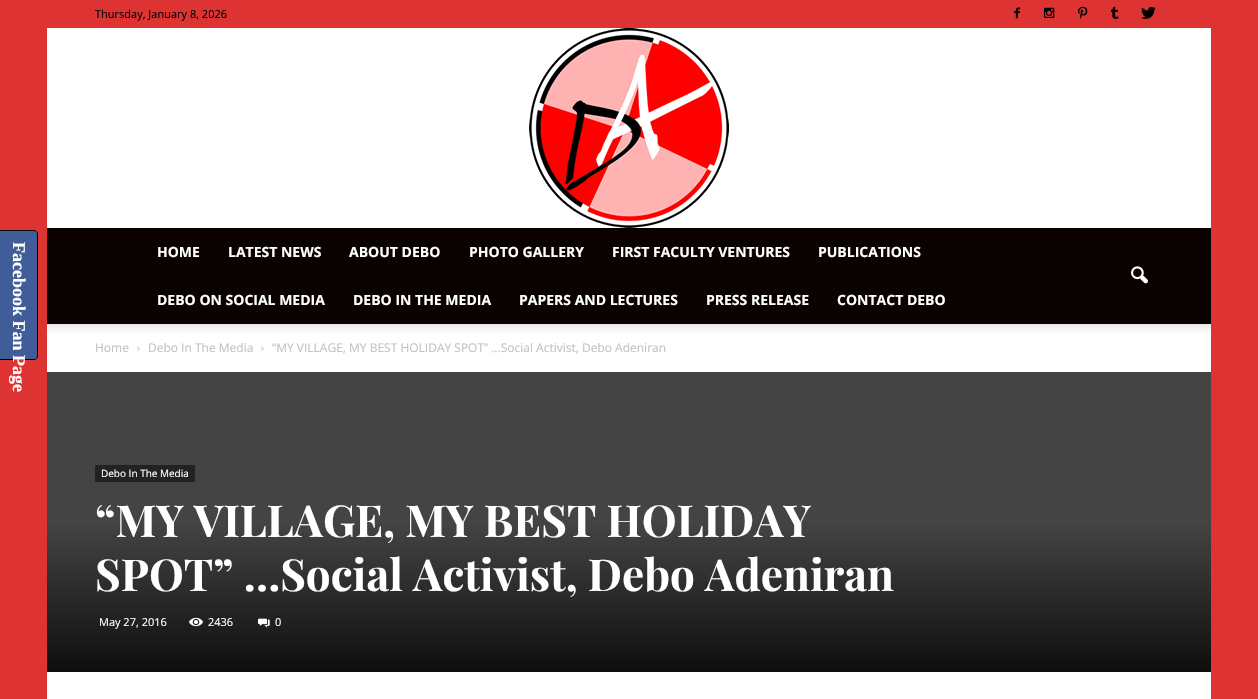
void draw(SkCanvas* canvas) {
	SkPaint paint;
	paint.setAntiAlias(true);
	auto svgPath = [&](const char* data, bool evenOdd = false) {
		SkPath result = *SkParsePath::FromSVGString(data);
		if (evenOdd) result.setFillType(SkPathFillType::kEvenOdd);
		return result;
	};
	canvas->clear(0xffdd3333);
	paint.setColor(0xff405d9a);
	canvas->drawPath(svgPath("M-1.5 230.5H34C36 230.5 37.5 232 37.5 234V356C37.5 358 36 359.5 34 359.5H-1.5Z"), paint);
	paint.setStroke(true);
	paint.setStrokeWidth(1);
	paint.setColor(0xff000000);
	canvas->drawPath(svgPath("M-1.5 230.5H34C36 230.5 37.5 232 37.5 234V356C37.5 358 36 359.5 34 359.5H-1.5Z"), paint);
	SkFont f1(fontMgr->matchFamilyStyle("Liberation Serif", SkFontStyle::Bold()), 18);
	f1.setSubpixel(true);
	paint.setStroke(false);
	paint.setColor(0xffffffff);
	canvas->save();
	canvas->rotate(90, 13, 242);
	canvas->drawString("Facebook Fan Page", 13, 242, f1, paint);
	canvas->restore();
	SkFont f2(fontMgr->matchFamilyStyle("Open Sans", SkFontStyle::Normal()), 11);
	f2.setSubpixel(true);
	paint.setColor(0xff000000);
	canvas->drawString("Thursday, January 8, 2026", 95, 18, f2, paint);
	canvas->drawImageRect(SkImages::DeferredFromEncodedData(SkData::MakeFromFileName("img1.png")), SkRect::MakeXYWH(1014, 7, 6, 12), SkSamplingOptions());
	canvas->drawImageRect(SkImages::DeferredFromEncodedData(SkData::MakeFromFileName("img2.png")), SkRect::MakeXYWH(1044, 7, 11, 11), SkSamplingOptions());
	canvas->drawImageRect(SkImages::DeferredFromEncodedData(SkData::MakeFromFileName("img3.png")), SkRect::MakeXYWH(1078, 6, 10, 13), SkSamplingOptions());
	canvas->drawImageRect(SkImages::DeferredFromEncodedData(SkData::MakeFromFileName("img4.png")), SkRect::MakeXYWH(1111, 6, 8, 13), SkSamplingOptions());
	canvas->drawImageRect(SkImages::DeferredFromEncodedData(SkData::MakeFromFileName("img5.png")), SkRect::MakeXYWH(1141, 6, 15, 13), SkSamplingOptions());
	paint.setColor(0xffffffff);
	canvas->drawRect(SkRect::MakeXYWH(47, 28, 1164, 200), paint);
	canvas->drawImageRect(SkImages::DeferredFromEncodedData(SkData::MakeFromFileName("img6.png")), SkRect::MakeXYWH(529, 28, 200, 200), SkSamplingOptions());
	paint.setColor(0xff0a0101);
	canvas->drawRect(SkRect::MakeXYWH(47, 228, 1164, 96), paint);
	SkFont f3(fontMgr->matchFamilyStyle("Open Sans", SkFontStyle::Bold()), 14);
	f3.setSubpixel(true);
	paint.setColor(0xffffffff);
	canvas->drawString("HOME", 157, 257, f3, paint);
	canvas->drawString("LATEST NEWS", 228, 257, f3, paint);
	canvas->drawString("ABOUT DEBO", 349, 257, f3, paint);
	canvas->drawString("PHOTO GALLERY", 469, 257, f3, paint);
	canvas->drawString("FIRST FACULTY VENTURES", 612, 257, f3, paint);
	canvas->drawString("PUBLICATIONS", 818, 257, f3, paint);
	canvas->drawString("DEBO ON SOCIAL MEDIA", 157, 305, f3, paint);
	canvas->drawString("DEBO IN THE MEDIA", 353, 305, f3, paint);
	canvas->drawString("PAPERS AND LECTURES", 519, 305, f3, paint);
	canvas->drawString("PRESS RELEASE", 706, 305, f3, paint);
	canvas->drawString("CONTACT DEBO", 837, 305, f3, paint);
	canvas->drawImageRect(SkImages::DeferredFromEncodedData(SkData::MakeFromFileName("img7.png")), SkRect::MakeXYWH(1131, 266, 17, 18), SkSamplingOptions());
	canvas->drawRect(SkRect::MakeXYWH(47, 324, 1164, 375), paint);
	canvas->drawImageRect(SkImages::DeferredFromEncodedData(SkData::MakeFromFileName("img8.png")), SkRect::MakeXYWH(47, 324, 1164, 9), SkSamplingOptions());
	SkFont f4(fontMgr->matchFamilyStyle("Open Sans", SkFontStyle::Normal()), 12);
	f4.setSubpixel(true);
	paint.setColor(0xffc3c3c3);
	canvas->drawString("Home", 95, 352, f4, paint);
	canvas->drawImageRect(SkImages::DeferredFromEncodedData(SkData::MakeFromFileName("img9.png")), SkRect::MakeXYWH(137, 346, 3, 5), SkSamplingOptions());
	canvas->drawString("Debo In The Media", 148, 352, f4, paint);
	canvas->drawImageRect(SkImages::DeferredFromEncodedData(SkData::MakeFromFileName("img9.png")), SkRect::MakeXYWH(261, 346, 3, 5), SkSamplingOptions());
	canvas->drawString("“MY VILLAGE, MY BEST HOLIDAY SPOT” …Social Activist, Debo Adeniran", 272, 352, f4, paint);
	paint.setColor(0xff444444);
	canvas->drawRect(SkRect::MakeXYWH(47, 372, 1164, 150), paint);
	paint.setColor(0xff222222);
	canvas->drawRect(SkRect::MakeXYWH(95, 465, 100, 17), paint);
	SkFont f5(fontMgr->matchFamilyStyle("Open Sans", SkFontStyle::Normal()), 10);
	f5.setSubpixel(true);
	paint.setColor(0xffffffff);
	canvas->drawString("Debo In The Media", 101, 477, f5, paint);
	{
		const SkColor colors[] = {0xff444444, 0xff0e0e0e};
		const float stops[] = {0, 1};
		const SkPoint ends[] = {{629, 522}, {629, 672}};
		paint.setShader(SkGradientShader::MakeLinear(ends, colors, stops, 2, SkTileMode::kClamp));
		paint.setAlpha(255);
	}
	canvas->drawRect(SkRect::MakeXYWH(47, 522, 1164, 150), paint);
	SkFont f6(fontMgr->matchFamilyStyle("Playfair Display", SkFontStyle::Bold()), 44);
	f6.setSubpixel(true);
	paint.setShader(nullptr);
	paint.setColor(0xffffffff);
	canvas->drawString("“MY VILLAGE, MY BEST HOLIDAY", 95, 537, f6, paint);
	canvas->drawString("SPOT” …Social Activist, Debo Adeniran", 95, 591, f6, paint);
	canvas->drawString("May 27, 2016", 99, 626, f2, paint);
	canvas->drawImageRect(SkImages::DeferredFromEncodedData(SkData::MakeFromFileName("img10.png")), SkRect::MakeXYWH(189, 617, 14, 10), SkSamplingOptions());
	canvas->drawString("2436", 208, 626, f2, paint);
	canvas->drawImageRect(SkImages::DeferredFromEncodedData(SkData::MakeFromFileName("img11.png")), SkRect::MakeXYWH(258, 618, 12, 10), SkSamplingOptions());
	canvas->drawString("0", 275, 626, f2, paint);
}
